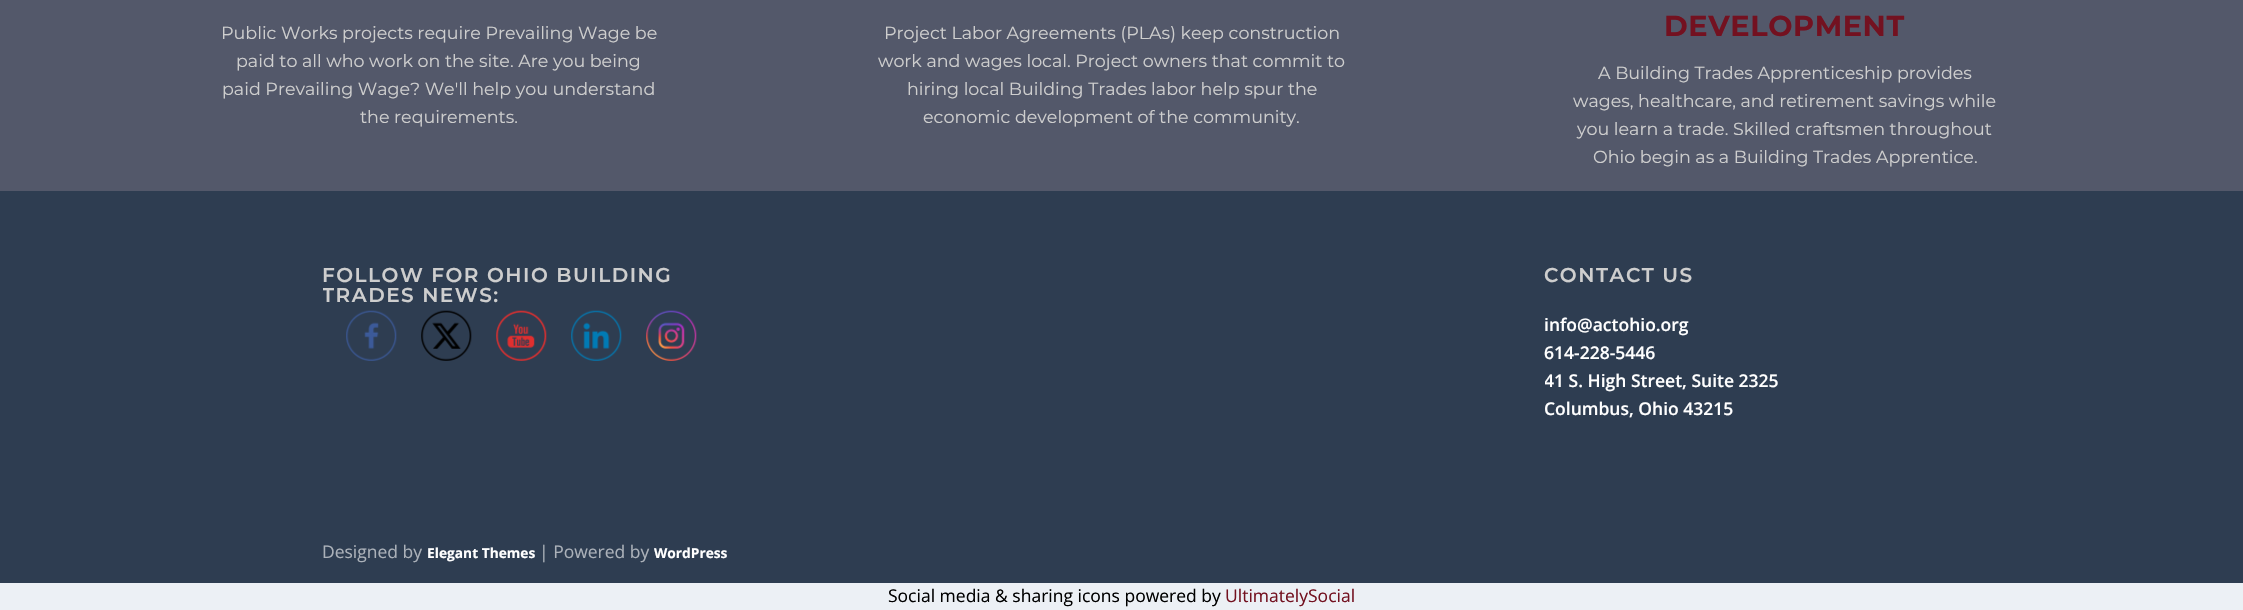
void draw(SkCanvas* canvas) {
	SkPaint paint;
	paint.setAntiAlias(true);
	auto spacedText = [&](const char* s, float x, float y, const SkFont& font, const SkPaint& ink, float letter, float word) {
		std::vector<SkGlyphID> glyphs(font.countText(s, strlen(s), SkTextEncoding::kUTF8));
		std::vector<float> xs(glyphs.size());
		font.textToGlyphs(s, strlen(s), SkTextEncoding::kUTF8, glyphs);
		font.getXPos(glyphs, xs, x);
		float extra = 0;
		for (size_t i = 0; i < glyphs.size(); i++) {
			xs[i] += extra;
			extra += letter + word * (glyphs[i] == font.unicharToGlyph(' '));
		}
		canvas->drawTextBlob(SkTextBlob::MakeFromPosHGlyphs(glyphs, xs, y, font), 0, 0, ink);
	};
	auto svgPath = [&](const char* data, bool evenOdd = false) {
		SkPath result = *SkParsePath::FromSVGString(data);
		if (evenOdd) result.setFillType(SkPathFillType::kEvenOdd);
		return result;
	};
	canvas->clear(0xffecf0f5);
	paint.setColor(0xff53586a);
	canvas->drawRect(SkRect::MakeXYWH(0, 0, 2243, 191), paint);
	SkFont f1(fontMgr->matchFamilyStyle("Montserrat", SkFontStyle::Normal()), 17.5);
	f1.setSubpixel(true);
	paint.setColor(0xffcecece);
	canvas->drawString("Public Works projects require Prevailing Wage be", 221, 39, f1, paint);
	canvas->drawString("paid to all who work on the site. Are you being", 236, 67, f1, paint);
	canvas->drawString("paid Prevailing Wage? We'll help you understand", 222, 95, f1, paint);
	canvas->drawString("the requirements.", 360, 123, f1, paint);
	canvas->drawString("Project Labor Agreements (PLAs) keep construction", 884, 39, f1, paint);
	canvas->drawString("work and wages local. Project owners that commit to", 878, 67, f1, paint);
	canvas->drawString("hiring local Building Trades labor help spur the", 907, 95, f1, paint);
	canvas->drawString("economic development of the community.", 923, 123, f1, paint);
	SkFont f2(fontMgr->matchFamilyStyle("Montserrat", SkFontStyle::Bold()), 28.75);
	f2.setSubpixel(true);
	paint.setColor(0xff731120);
	spacedText("DEVELOPMENT", 1664, 36, f2, paint, 0.6, 0);
	paint.setColor(0xffcecece);
	canvas->drawString("A Building Trades Apprenticeship provides", 1598, 79, f1, paint);
	canvas->drawString("wages, healthcare, and retirement savings while", 1573, 107, f1, paint);
	canvas->drawString("you learn a trade. Skilled craftsmen throughout", 1577, 135, f1, paint);
	canvas->drawString("Ohio begin as a Building Trades Apprentice.", 1593, 163, f1, paint);
	paint.setColor(0xff2e3d51);
	canvas->drawRect(SkRect::MakeXYWH(0, 191, 2243, 392), paint);
	SkFont f3(fontMgr->matchFamilyStyle("Montserrat", SkFontStyle(600, SkFontStyle::kNormal_Width, SkFontStyle::kUpright_Slant)), 20);
	f3.setSubpixel(true);
	paint.setColor(0xffcecece);
	spacedText("FOLLOW FOR OHIO BUILDING", 322, 282, f3, paint, 1.5, 0);
	canvas->save();
	canvas->clipPath(svgPath("M327 191H696C698 191 700 193 700 195V385C700 387 698 389 696 389H327C325 389 323 387 323 385V195C323 193 325 191 327 191Z"), true);
	spacedText("TRADES NEWS:", 322, 302, f3, paint, 1.5, 0);
	canvas->restore();
	canvas->drawImageRect(SkImages::DeferredFromEncodedData(SkData::MakeFromFileName("img1.png")), SkRect::MakeXYWH(346, 310, 51, 51), SkSamplingOptions());
	canvas->drawImageRect(SkImages::DeferredFromEncodedData(SkData::MakeFromFileName("img2.png")), SkRect::MakeXYWH(421, 310, 51, 51), SkSamplingOptions());
	canvas->drawImageRect(SkImages::DeferredFromEncodedData(SkData::MakeFromFileName("img3.png")), SkRect::MakeXYWH(496, 310, 51, 51), SkSamplingOptions());
	canvas->drawImageRect(SkImages::DeferredFromEncodedData(SkData::MakeFromFileName("img4.png")), SkRect::MakeXYWH(571, 310, 51, 51), SkSamplingOptions());
	canvas->drawImageRect(SkImages::DeferredFromEncodedData(SkData::MakeFromFileName("img5.png")), SkRect::MakeXYWH(646, 310, 51, 51), SkSamplingOptions());
	spacedText("CONTACT US", 1544, 282, f3, paint, 1.5, 0);
	SkFont f4(fontMgr->matchFamilyStyle("Open Sans", SkFontStyle(600, SkFontStyle::kNormal_Width, SkFontStyle::kUpright_Slant)), 17.5);
	f4.setSubpixel(true);
	paint.setColor(0xffffffff);
	canvas->drawString("info@actohio.org", 1544, 331, f4, paint);
	canvas->drawString("614-228-5446", 1544, 359, f4, paint);
	canvas->save();
	canvas->clipPath(svgPath("M1549 191H1919C1921 191 1923 193 1923 195V445C1923 447 1921 449 1919 449H1549C1547 449 1545 447 1545 445V195C1545 193 1547 191 1549 191Z"), true);
	canvas->drawString("41 S. High Street, Suite 2325", 1544, 387, f4, paint);
	canvas->restore();
	canvas->drawString("Columbus, Ohio 43215", 1544, 415, f4, paint);
	SkFont f5(fontMgr->matchFamilyStyle("Open Sans", SkFontStyle::Normal()), 17.5);
	f5.setSubpixel(true);
	paint.setColor(0xffabb1b9);
	canvas->drawString("Designed by", 322, 558, f5, paint);
	SkFont f6(fontMgr->matchFamilyStyle("Open Sans", SkFontStyle::Bold()), 13.75);
	f6.setSubpixel(true);
	paint.setColor(0xffffffff);
	canvas->drawString("Elegant Themes", 427, 558, f6, paint);
	paint.setColor(0xffabb1b9);
	canvas->drawString("| Powered by", 539, 558, f5, paint);
	paint.setColor(0xffffffff);
	canvas->drawString("WordPress", 654, 558, f6, paint);
	paint.setColor(0xff000000);
	canvas->drawString("Social media & sharing icons powered by", 888, 602, f5, paint);
	paint.setColor(0xff731120);
	canvas->drawString("UltimatelySocial", 1225, 602, f5, paint);
}
